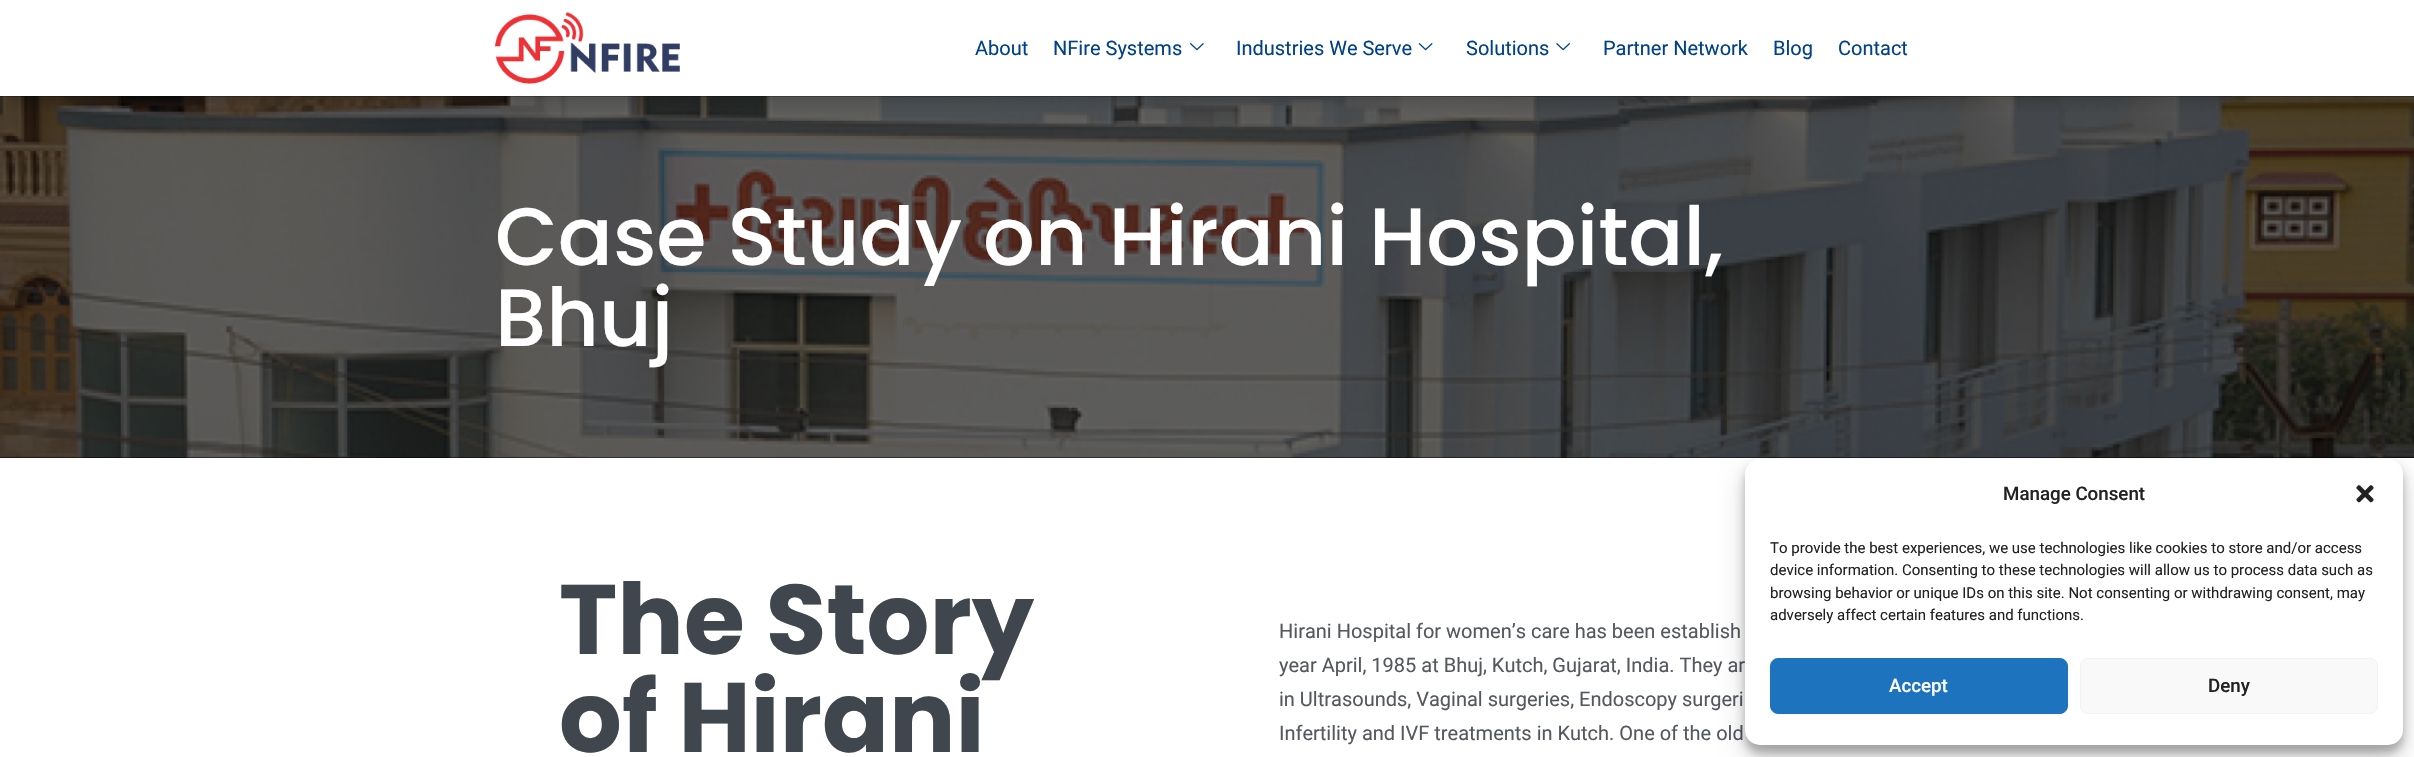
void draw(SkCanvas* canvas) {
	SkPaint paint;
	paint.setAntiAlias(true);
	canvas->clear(0xffffffff);
	paint.setColor(0xff000000);
	canvas->drawRect(SkRect::MakeXYWH(0, 96, 2414, 362), paint);
	canvas->drawImageRect(SkImages::DeferredFromEncodedData(SkData::MakeFromFileName("img5.png")), SkRect::MakeXYWH(0, 96, 2414, 362), SkSamplingOptions());
	canvas->save();
	canvas->clipRect(SkRect::MakeXYWH(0, 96, 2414, 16));
	paint.setColor(0x80000000);
	paint.setMaskFilter(SkMaskFilter::MakeBlur(kNormal_SkBlurStyle, 14));
	canvas->drawRect(SkRect::MakeXYWH(9, 9, 2397, 79), paint);
	paint.setMaskFilter(nullptr);
	canvas->restore();
	canvas->drawImageRect(SkImages::DeferredFromEncodedData(SkData::MakeFromFileName("img1.png")), SkRect::MakeXYWH(495, 12, 185, 72), SkSamplingOptions());
	SkFont f1(fontMgr->matchFamilyStyle("Roboto", SkFontStyle::Normal()), 20);
	f1.setSubpixel(true);
	paint.setColor(0xff004188);
	canvas->drawString("About", 975, 55, f1, paint);
	canvas->drawString("NFire Systems", 1053, 55, f1, paint);
	canvas->drawImageRect(SkImages::DeferredFromEncodedData(SkData::MakeFromFileName("img2.png")), SkRect::MakeXYWH(1190, 43, 14, 8), SkSamplingOptions());
	canvas->drawString("Industries We Serve", 1236, 55, f1, paint);
	canvas->drawImageRect(SkImages::DeferredFromEncodedData(SkData::MakeFromFileName("img3.png")), SkRect::MakeXYWH(1418, 43, 15, 8), SkSamplingOptions());
	canvas->drawString("Solutions", 1466, 55, f1, paint);
	canvas->drawImageRect(SkImages::DeferredFromEncodedData(SkData::MakeFromFileName("img4.png")), SkRect::MakeXYWH(1556, 43, 14, 8), SkSamplingOptions());
	canvas->drawString("Partner Network", 1603, 55, f1, paint);
	canvas->drawString("Blog", 1773, 55, f1, paint);
	canvas->drawString("Contact", 1838, 55, f1, paint);
	SkFont f2(fontMgr->matchFamilyStyle("Poppins", SkFontStyle(500, SkFontStyle::kNormal_Width, SkFontStyle::kUpright_Slant)), 81.25);
	f2.setSubpixel(true);
	paint.setColor(0xffffffff);
	canvas->drawString("Case Study on Hirani Hospital,", 495, 265, f2, paint);
	canvas->drawString("Bhuj", 495, 346, f2, paint);
	SkFont f3(fontMgr->matchFamilyStyle("Poppins", SkFontStyle::Bold()), 98.75);
	f3.setSubpixel(true);
	paint.setColor(0xff40464d);
	canvas->drawString("The Story", 559, 654, f3, paint);
	canvas->drawString("of Hirani", 559, 752, f3, paint);
	paint.setColor(0xff54595f);
	canvas->drawString("Hirani Hospital for women’s care has been establish", 1279, 638, f1, paint);
	canvas->drawString("year April, 1985 at Bhuj, Kutch, Gujarat, India. They ar", 1279, 672, f1, paint);
	canvas->drawString("in Ultrasounds, Vaginal surgeries, Endoscopy surgeri", 1279, 706, f1, paint);
	canvas->drawString("Infertility and IVF treatments in Kutch. One of the old", 1279, 740, f1, paint);
	paint.setColor(0x3b000000);
	paint.setMaskFilter(SkMaskFilter::MakeBlur(kNormal_SkBlurStyle, 4));
	canvas->drawRoundRect(SkRect::MakeXYWH(1745, 466, 658, 287), 15, 15, paint);
	paint.setMaskFilter(nullptr);
	paint.setColor(0x30000000);
	paint.setMaskFilter(SkMaskFilter::MakeBlur(kNormal_SkBlurStyle, 12.5));
	canvas->drawRoundRect(SkRect::MakeXYWH(1745, 471, 658, 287), 15, 15, paint);
	paint.setMaskFilter(nullptr);
	paint.setColor(0xffffffff);
	canvas->drawRoundRect(SkRect::MakeXYWH(1745, 459, 658, 286), 15, 15, paint);
	SkFont f4(fontMgr->matchFamilyStyle("Roboto", SkFontStyle(500, SkFontStyle::kNormal_Width, SkFontStyle::kUpright_Slant)), 18.75);
	f4.setSubpixel(true);
	paint.setColor(0xff222222);
	canvas->drawString("Manage Consent", 2003, 500, f4, paint);
	canvas->drawImageRect(SkImages::DeferredFromEncodedData(SkData::MakeFromFileName("img6.png")), SkRect::MakeXYWH(2356, 485, 18, 18), SkSamplingOptions());
	SkFont f5(fontMgr->matchFamilyStyle("Roboto", SkFontStyle::Normal()), 15);
	f5.setSubpixel(true);
	canvas->drawString("To provide the best experiences, we use technologies like cookies to store and/or access", 1770, 553, f5, paint);
	canvas->drawString("device information. Consenting to these technologies will allow us to process data such as", 1770, 575, f5, paint);
	canvas->drawString("browsing behavior or unique IDs on this site. Not consenting or withdrawing consent, may", 1770, 598, f5, paint);
	canvas->drawString("adversely affect certain features and functions.", 1770, 620, f5, paint);
	paint.setColor(0xff1e73be);
	canvas->drawRoundRect(SkRect::MakeXYWH(1770.5, 658.5, 297, 55), 7.5, 7.5, paint);
	paint.setStroke(true);
	paint.setStrokeWidth(1);
	canvas->drawRoundRect(SkRect::MakeXYWH(1770.5, 658.5, 297, 55), 7.5, 7.5, paint);
	paint.setStroke(false);
	paint.setColor(0xffffffff);
	canvas->drawString("Accept", 1889, 692, f4, paint);
	paint.setColor(0xfff9f9f9);
	canvas->drawRoundRect(SkRect::MakeXYWH(2080.5, 658.5, 297, 55), 7.5, 7.5, paint);
	paint.setStroke(true);
	paint.setColor(0xfff2f2f2);
	canvas->drawRoundRect(SkRect::MakeXYWH(2080.5, 658.5, 297, 55), 7.5, 7.5, paint);
	paint.setStroke(false);
	paint.setColor(0xff222222);
	canvas->drawString("Deny", 2208, 692, f4, paint);
}
